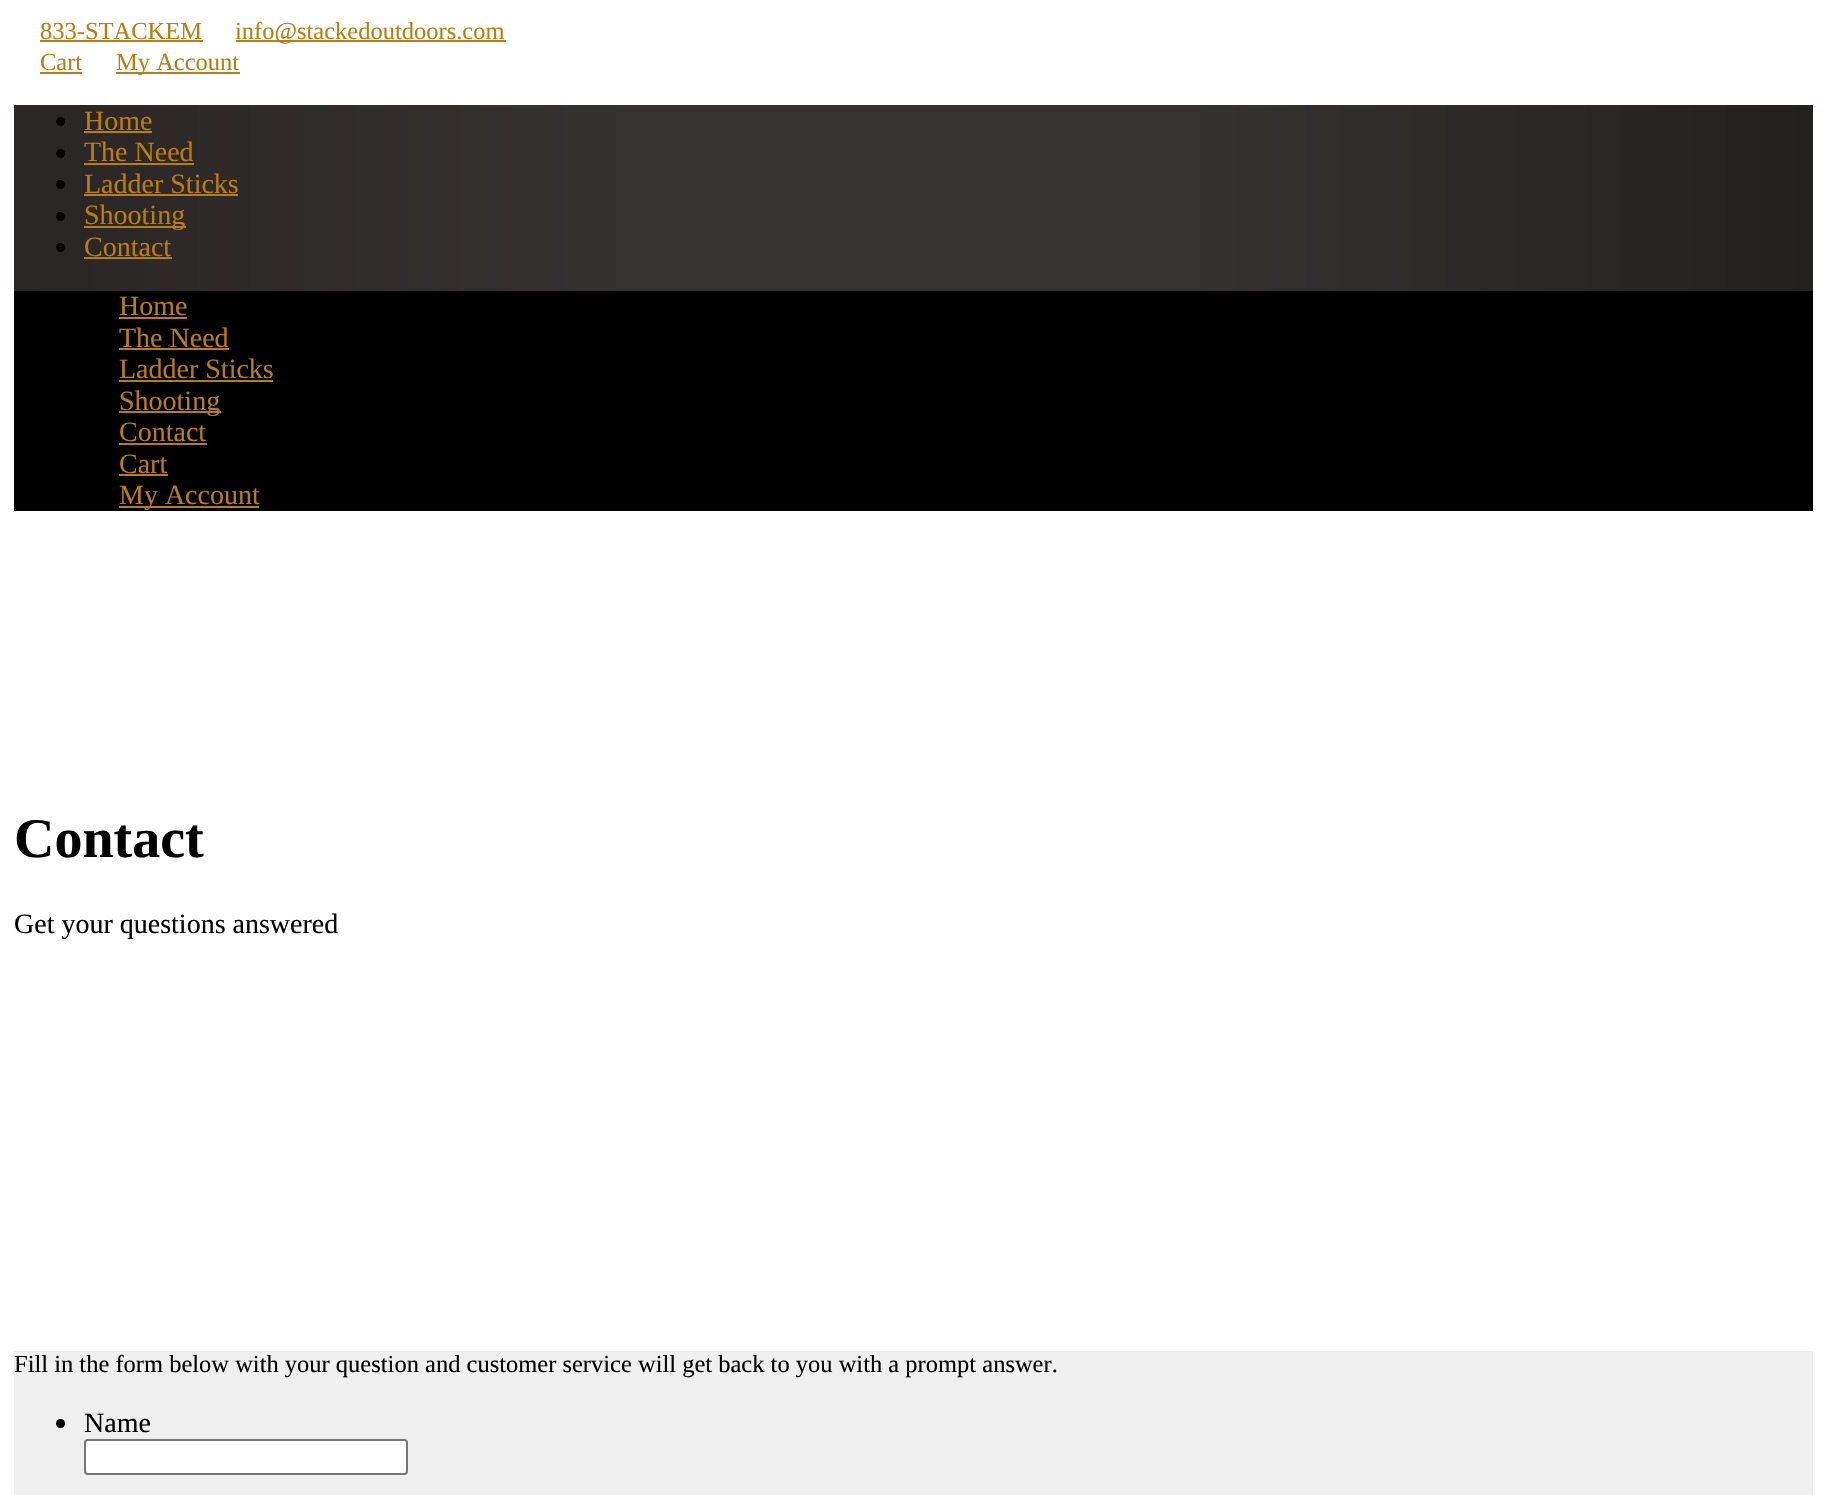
void draw(SkCanvas* canvas) {
	SkPaint paint;
	paint.setAntiAlias(true);
	canvas->clear(0xffffffff);
	SkFont f1(fontMgr->matchFamilyStyle("Liberation Serif", SkFontStyle::Normal()), 24.5);
	f1.setSubpixel(true);
	paint.setColor(0xffba7d12);
	canvas->drawString("833-STACKEM", 40, 39, f1, paint);
	canvas->drawRect(SkRect::MakeXYWH(40, 40, 163, 2), paint);
	canvas->drawRect(SkRect::MakeXYWH(236, 40, 270, 2), paint);
	canvas->drawString("info@stackedoutdoors.com", 235, 39, f1, paint);
	canvas->drawString("Cart", 40, 70, f1, paint);
	canvas->drawRect(SkRect::MakeXYWH(40, 72, 42, 2), paint);
	canvas->drawRect(SkRect::MakeXYWH(116, 72, 124, 2), paint);
	canvas->drawString("My Account", 116, 70, f1, paint);
	{
		const SkColor colors[] = {0xff2b2626, 0xff363230, 0xff363230, 0xff242020};
		const float stops[] = {0, 0.35, 0.65, 1};
		const SkPoint ends[] = {{14, 308}, {1813, 308}};
		paint.setShader(SkGradientShader::MakeLinear(ends, colors, stops, 4, SkTileMode::kClamp));
		paint.setAlpha(255);
	}
	canvas->drawRect(SkRect::MakeXYWH(14, 105, 1799, 186), paint);
	paint.setShader(nullptr);
	paint.setColor(0xff000000);
	canvas->drawCircle(60.5, 121.5, 4.5, paint);
	SkFont f2(fontMgr->matchFamilyStyle("Liberation Serif", SkFontStyle::Normal()), 28);
	f2.setSubpixel(true);
	paint.setColor(0xffba7d12);
	canvas->drawString("Home", 84, 130, f2, paint);
	canvas->drawRect(SkRect::MakeXYWH(84, 131, 68, 2), paint);
	paint.setColor(0xff000000);
	canvas->drawCircle(60.5, 153.5, 4.5, paint);
	paint.setColor(0xffba7d12);
	canvas->drawString("The Need", 84, 161, f2, paint);
	canvas->drawRect(SkRect::MakeXYWH(84, 163, 110, 2), paint);
	paint.setColor(0xff000000);
	canvas->drawCircle(60.5, 184.5, 4.5, paint);
	paint.setColor(0xffba7d12);
	canvas->drawString("Ladder Sticks", 84, 193, f2, paint);
	canvas->drawRect(SkRect::MakeXYWH(84, 194, 154, 2), paint);
	paint.setColor(0xff000000);
	canvas->drawCircle(60.5, 216.5, 4.5, paint);
	paint.setColor(0xffba7d12);
	canvas->drawRect(SkRect::MakeXYWH(84, 226, 102, 2), paint);
	canvas->drawString("Shooting", 84, 224, f2, paint);
	paint.setColor(0xff000000);
	canvas->drawCircle(60.5, 247.5, 4.5, paint);
	paint.setColor(0xffba7d12);
	canvas->drawString("Contact", 84, 256, f2, paint);
	canvas->drawRect(SkRect::MakeXYWH(84, 257, 88, 2), paint);
	paint.setColor(0xff000000);
	canvas->drawRect(SkRect::MakeXYWH(14, 291, 1799, 220), paint);
	paint.setColor(0xffba7d12);
	canvas->drawString("Home", 119, 315, f2, paint);
	canvas->drawRect(SkRect::MakeXYWH(119, 317, 68, 2), paint);
	canvas->drawString("The Need", 119, 347, f2, paint);
	canvas->drawRect(SkRect::MakeXYWH(119, 348, 110, 2), paint);
	canvas->drawString("Ladder Sticks", 119, 378, f2, paint);
	canvas->drawRect(SkRect::MakeXYWH(119, 380, 154, 2), paint);
	canvas->drawRect(SkRect::MakeXYWH(119, 411, 102, 2), paint);
	canvas->drawString("Shooting", 119, 410, f2, paint);
	canvas->drawString("Contact", 119, 441, f2, paint);
	canvas->drawRect(SkRect::MakeXYWH(119, 443, 88, 2), paint);
	canvas->drawString("Cart", 119, 473, f2, paint);
	canvas->drawRect(SkRect::MakeXYWH(119, 474, 49, 2), paint);
	canvas->drawRect(SkRect::MakeXYWH(119, 506, 140, 2), paint);
	canvas->drawString("My Account", 119, 504, f2, paint);
	SkFont f3(fontMgr->matchFamilyStyle("Liberation Serif", SkFontStyle::Bold()), 56);
	f3.setSubpixel(true);
	paint.setColor(0xff000000);
	canvas->drawString("Contact", 14, 857, f3, paint);
	canvas->drawString("Get your questions answered", 14, 933, f2, paint);
	paint.setColor(0xffefefef);
	canvas->drawRect(SkRect::MakeXYWH(14, 1351, 1799, 144), paint);
	paint.setColor(0xff000000);
	canvas->drawString("Fill in the form below with your question and customer service will get back to you with a prompt answer.", 14, 1372, f1, paint);
	canvas->drawCircle(60.5, 1423.5, 4.5, paint);
	canvas->drawString("Name", 84, 1432, f2, paint);
	paint.setColor(0xffffffff);
	canvas->drawRoundRect(SkRect::MakeXYWH(85, 1440, 322, 34), 3, 3, paint);
	paint.setStroke(true);
	paint.setStrokeWidth(2);
	paint.setColor(0xff767676);
	canvas->drawRoundRect(SkRect::MakeXYWH(85, 1440, 322, 34), 3, 3, paint);
}
